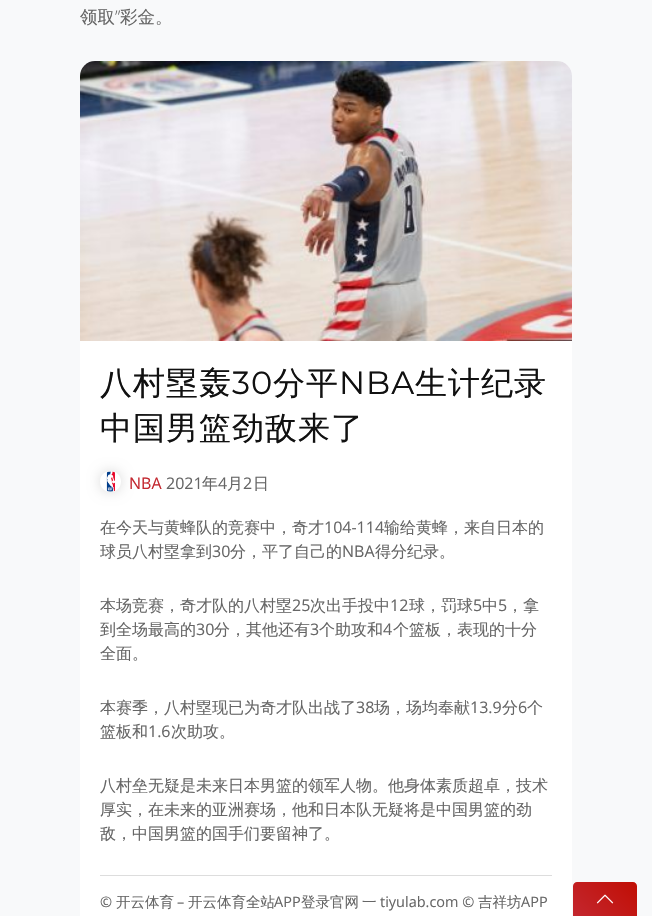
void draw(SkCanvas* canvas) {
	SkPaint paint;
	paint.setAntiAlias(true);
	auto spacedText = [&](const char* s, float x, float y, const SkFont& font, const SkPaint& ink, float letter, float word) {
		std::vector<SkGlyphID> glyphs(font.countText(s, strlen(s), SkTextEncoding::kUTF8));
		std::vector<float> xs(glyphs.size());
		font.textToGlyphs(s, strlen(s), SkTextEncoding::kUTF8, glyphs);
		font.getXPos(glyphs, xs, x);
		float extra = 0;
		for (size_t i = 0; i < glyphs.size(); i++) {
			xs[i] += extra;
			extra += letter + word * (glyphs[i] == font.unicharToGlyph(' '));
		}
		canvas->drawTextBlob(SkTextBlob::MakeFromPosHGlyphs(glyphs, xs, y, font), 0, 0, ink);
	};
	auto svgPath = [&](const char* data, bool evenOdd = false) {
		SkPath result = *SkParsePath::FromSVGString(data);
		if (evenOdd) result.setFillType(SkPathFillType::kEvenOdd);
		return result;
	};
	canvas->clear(0xfff8f9fa);
	SkFont f1(fontMgr->matchFamilyStyle("WenQuanYi Zen Hei", SkFontStyle(500, SkFontStyle::kNormal_Width, SkFontStyle::kUpright_Slant)), 17.5);
	f1.setSubpixel(true);
	paint.setColor(0xff666666);
	canvas->drawString("领取", 80, 23, f1, paint);
	SkFont f2(fontMgr->matchFamilyStyle("Open Sans", SkFontStyle(300, SkFontStyle::kNormal_Width, SkFontStyle::kUpright_Slant)), 17.5);
	f2.setSubpixel(true);
	canvas->drawString("”", 115, 23, f2, paint);
	canvas->drawString("彩金。", 120, 23, f1, paint);
	paint.setColor(0xffffffff);
	canvas->drawRoundRect(SkRect::MakeXYWH(80, 61, 492, 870), 15, 15, paint);
	canvas->drawImageRect(SkImages::DeferredFromEncodedData(SkData::MakeFromFileName("img1.png")), SkRect::MakeXYWH(80, 61, 492, 280), SkSamplingOptions());
	SkFont f3(fontMgr->matchFamilyStyle("WenQuanYi Zen Hei", SkFontStyle(500, SkFontStyle::kNormal_Width, SkFontStyle::kUpright_Slant)), 32);
	f3.setSubpixel(true);
	paint.setColor(0xff111111);
	spacedText("八村塁轰", 100, 394, f3, paint, 1, 0);
	SkFont f4(fontMgr->matchFamilyStyle("Montserrat", SkFontStyle::Normal()), 32);
	f4.setSubpixel(true);
	spacedText("30", 232, 394, f4, paint, 1, 0);
	spacedText("分平", 273, 394, f3, paint, 1, 0);
	spacedText("NBA", 339, 394, f4, paint, 1, 0);
	spacedText("生计纪录", 415, 394, f3, paint, 1, 0);
	spacedText("中国男篮劲敌来了", 100, 439, f3, paint, 1, 0);
	canvas->save();
	canvas->clipPath(svgPath("M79 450H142V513H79ZM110.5 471C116.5 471 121 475.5 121 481.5C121 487.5 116.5 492 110.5 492C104.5 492 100 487.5 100 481.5C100 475.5 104.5 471 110.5 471Z", true), true);
	paint.setColor(0x33000000);
	paint.setMaskFilter(SkMaskFilter::MakeBlur(kNormal_SkBlurStyle, 7));
	canvas->drawRoundRect(SkRect::MakeXYWH(101, 472, 19, 19), 9.5, 9.5, paint);
	paint.setMaskFilter(nullptr);
	canvas->restore();
	canvas->drawImageRect(SkImages::DeferredFromEncodedData(SkData::MakeFromFileName("img2.png")), SkRect::MakeXYWH(106, 471, 9, 21), SkSamplingOptions());
	SkFont f5(fontMgr->matchFamilyStyle("Open Sans", SkFontStyle::Normal()), 16);
	f5.setSubpixel(true);
	paint.setColor(0xffc3272f);
	canvas->drawString("NBA", 129, 489, f5, paint);
	paint.setColor(0xff666666);
	canvas->drawString("2021", 166, 489, f5, paint);
	SkFont f6(fontMgr->matchFamilyStyle("WenQuanYi Zen Hei", SkFontStyle(500, SkFontStyle::kNormal_Width, SkFontStyle::kUpright_Slant)), 16);
	f6.setSubpixel(true);
	canvas->drawString("年", 202, 489, f6, paint);
	canvas->drawString("4", 218, 489, f5, paint);
	canvas->drawString("月", 227, 489, f6, paint);
	canvas->drawString("2", 243, 489, f5, paint);
	canvas->drawString("日", 253, 489, f6, paint);
	canvas->drawString("在今天与黄蜂队的竞赛中，奇才", 100, 533, f6, paint);
	canvas->drawString("104-114", 324, 533, f5, paint);
	canvas->drawString("输给黄蜂，来自日本的", 384, 533, f6, paint);
	canvas->drawString("球员八村塁拿到", 100, 557, f6, paint);
	canvas->drawString("30", 212, 557, f5, paint);
	canvas->drawString("分，平了自己的", 230, 557, f6, paint);
	canvas->drawString("NBA", 342, 557, f5, paint);
	canvas->drawString("得分纪录。", 375, 557, f6, paint);
	canvas->drawString("本场竞赛，奇才队的八村塁", 100, 611, f6, paint);
	canvas->drawString("25", 292, 611, f5, paint);
	canvas->drawString("次出手投中", 310, 611, f6, paint);
	canvas->drawString("12", 390, 611, f5, paint);
	canvas->drawString("球，罚球", 409, 611, f6, paint);
	canvas->drawString("5", 473, 611, f5, paint);
	canvas->drawString("中", 482, 611, f6, paint);
	canvas->drawString("5", 498, 611, f5, paint);
	canvas->drawString("，拿", 507, 611, f6, paint);
	canvas->drawString("到全场最高的", 100, 635, f6, paint);
	canvas->drawString("30", 196, 635, f5, paint);
	canvas->drawString("分，其他还有", 214, 635, f6, paint);
	canvas->drawString("3", 310, 635, f5, paint);
	canvas->drawString("个助攻和", 319, 635, f6, paint);
	canvas->drawString("4", 383, 635, f5, paint);
	canvas->drawString("个篮板，表现的十分", 393, 635, f6, paint);
	canvas->drawString("全面。", 100, 659, f6, paint);
	canvas->drawString("本赛季，八村塁现已为奇才队出战了", 100, 713, f6, paint);
	canvas->drawString("38", 356, 713, f5, paint);
	canvas->drawString("场，场均奉献", 374, 713, f6, paint);
	canvas->drawString("13.9", 470, 713, f5, paint);
	canvas->drawString("分", 502, 713, f6, paint);
	canvas->drawString("6", 518, 713, f5, paint);
	canvas->drawString("个", 527, 713, f6, paint);
	canvas->drawString("篮板和", 100, 737, f6, paint);
	canvas->drawString("1.6", 148, 737, f5, paint);
	canvas->drawString("次助攻。", 171, 737, f6, paint);
	canvas->drawString("八村垒无疑是未来日本男篮的领军人物。他身体素质超卓，技术", 100, 791, f6, paint);
	canvas->drawString("厚实，在未来的亚洲赛场，他和日本队无疑将是中国男篮的劲", 100, 815, f6, paint);
	canvas->drawString("敌，中国男篮的国手们要留神了。", 100, 839, f6, paint);
	paint.setColor(0xffdddddd);
	canvas->drawRect(SkRect::MakeXYWH(100, 875, 452, 1), paint);
	SkFont f7(fontMgr->matchFamilyStyle("Open Sans", SkFontStyle::Normal()), 14.5);
	f7.setSubpixel(true);
	paint.setColor(0xff666666);
	canvas->drawString("©", 100, 907, f7, paint);
	SkFont f8(fontMgr->matchFamilyStyle("WenQuanYi Zen Hei", SkFontStyle(500, SkFontStyle::kNormal_Width, SkFontStyle::kUpright_Slant)), 14.5);
	f8.setSubpixel(true);
	canvas->drawString("开云体育", 116, 907, f8, paint);
	canvas->drawString("–", 177, 907, f7, paint);
	canvas->drawString("开云体育全站", 188, 907, f8, paint);
	canvas->drawString("APP", 274, 907, f7, paint);
	canvas->drawString("登录官网", 301, 907, f8, paint);
	canvas->drawString("一", 362, 907, f8, paint);
	canvas->drawString("tiyulab.com ©", 380, 907, f7, paint);
	canvas->drawString("吉祥坊", 478, 907, f8, paint);
	canvas->drawString("APP", 521, 907, f7, paint);
	{
		const SkColor colors[] = {0xffc3272f, 0xffc10e04};
		const float stops[] = {0, 1};
		const SkPoint ends[] = {{581, 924}, {630, 875}};
		paint.setShader(SkGradientShader::MakeLinear(ends, colors, stops, 2, SkTileMode::kClamp));
		paint.setAlpha(255);
	}
	canvas->drawPath(svgPath("M577 882H633C635 882 637 884 637 886V916H573V886C573 884 575 882 577 882Z"), paint);
	canvas->drawImageRect(SkImages::DeferredFromEncodedData(SkData::MakeFromFileName("img3.png")), SkRect::MakeXYWH(596, 894, 18, 10), SkSamplingOptions());
}
